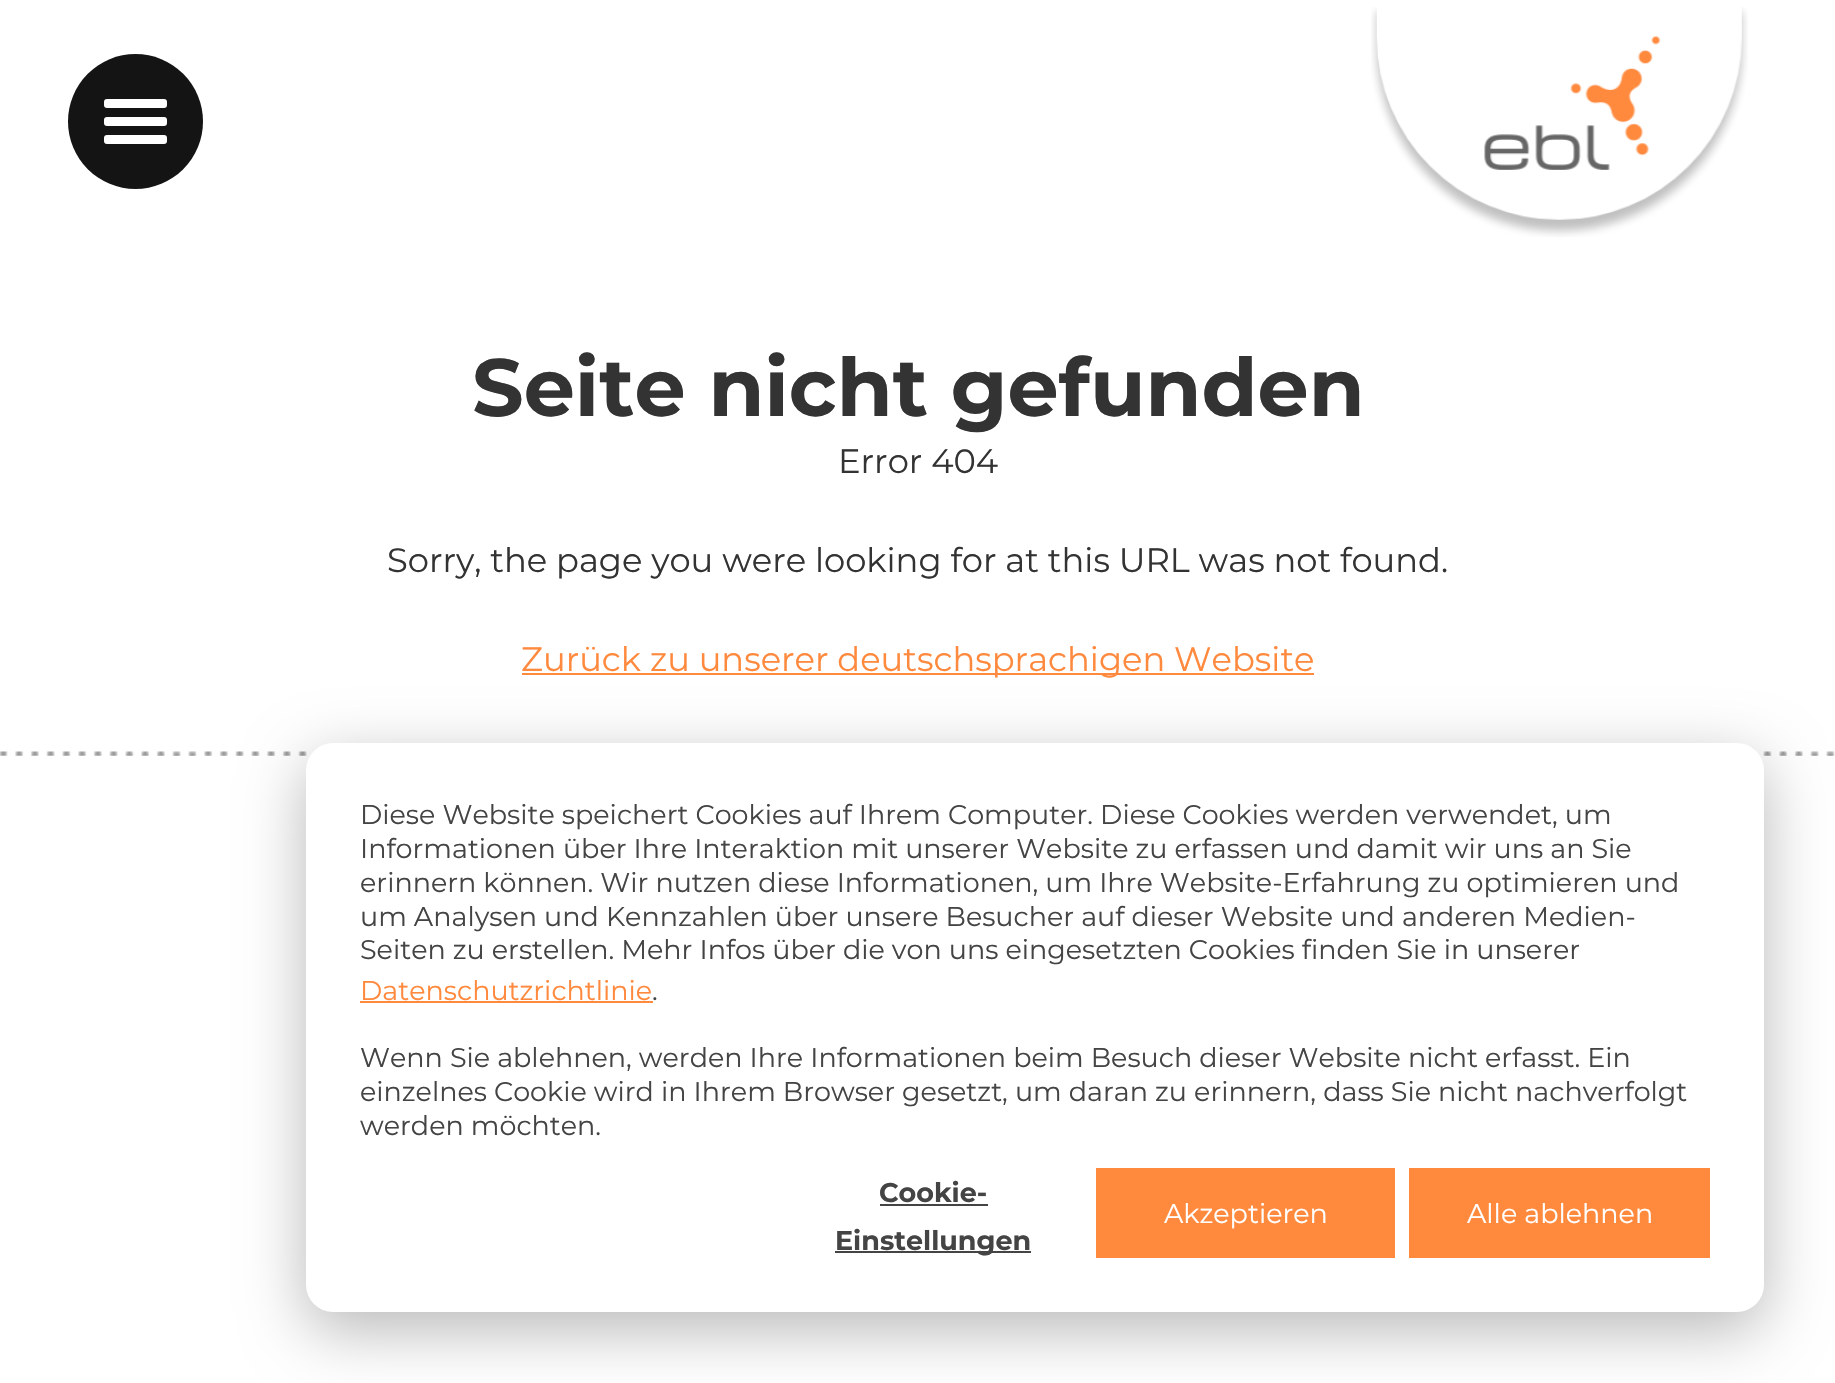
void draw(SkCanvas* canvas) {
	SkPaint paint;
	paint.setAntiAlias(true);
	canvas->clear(0xffffffff);
	paint.setColor(0xff141414);
	canvas->drawCircle(135.5, 121.5, 67.5, paint);
	paint.setColor(0xffffffff);
	canvas->drawRoundRect(SkRect::MakeXYWH(104, 99, 63, 9), 3, 3, paint);
	canvas->drawRoundRect(SkRect::MakeXYWH(104, 117, 63, 9), 3, 3, paint);
	canvas->drawRoundRect(SkRect::MakeXYWH(104, 135, 63, 9), 3, 3, paint);
	canvas->drawImageRect(SkImages::DeferredFromEncodedData(SkData::MakeFromFileName("img1.png")), SkRect::MakeXYWH(1371, 7, 377, 230), SkSamplingOptions());
	SkFont f1(fontMgr->matchFamilyStyle("Montserrat", SkFontStyle::Bold()), 81);
	f1.setSubpixel(true);
	paint.setColor(0xff333333);
	canvas->drawString("Seite nicht gefunden", 472, 416, f1, paint);
	SkFont f2(fontMgr->matchFamilyStyle("Montserrat", SkFontStyle::Normal()), 33.75);
	f2.setSubpixel(true);
	canvas->drawString("Error 404", 838, 473, f2, paint);
	canvas->drawString("Sorry, the page you were looking for at this URL was not found.", 387, 572, f2, paint);
	paint.setColor(0xffff893d);
	canvas->drawRect(SkRect::MakeXYWH(522, 673, 792, 2), paint);
	canvas->drawString("Zurück zu unserer deutschsprachigen Website", 521, 671, f2, paint);
	canvas->drawImageRect(SkImages::DeferredFromEncodedData(SkData::MakeFromFileName("img2.png")), SkRect::MakeXYWH(0, 751, 1835, 5), SkSamplingOptions());
	paint.setColor(0x47000000);
	paint.setMaskFilter(SkMaskFilter::MakeBlur(kNormal_SkBlurStyle, 31.5));
	canvas->drawRoundRect(SkRect::MakeXYWH(306, 761, 1458, 569), 27, 27, paint);
	paint.setMaskFilter(nullptr);
	paint.setColor(0xffffffff);
	canvas->drawRoundRect(SkRect::MakeXYWH(306, 743, 1458, 569), 27, 27, paint);
	SkFont f3(fontMgr->matchFamilyStyle("Montserrat", SkFontStyle::Normal()), 27);
	f3.setSubpixel(true);
	paint.setColor(0xff444444);
	canvas->drawString("Diese Website speichert Cookies auf Ihrem Computer. Diese Cookies werden verwendet, um", 360, 824, f3, paint);
	canvas->drawString("Informationen über Ihre Interaktion mit unserer Website zu erfassen und damit wir uns an Sie", 360, 858, f3, paint);
	canvas->drawString("erinnern können. Wir nutzen diese Informationen, um Ihre Website-Erfahrung zu optimieren und", 360, 892, f3, paint);
	canvas->drawString("um Analysen und Kennzahlen über unsere Besucher auf dieser Website und anderen Medien-", 360, 926, f3, paint);
	canvas->drawString("Seiten zu erstellen. Mehr Infos über die von uns eingesetzten Cookies finden Sie in unserer", 360, 959, f3, paint);
	paint.setColor(0xffff893d);
	canvas->drawString("Datenschutzrichtlinie", 360, 1000, f3, paint);
	canvas->drawRect(SkRect::MakeXYWH(360, 1001, 293, 2), paint);
	paint.setColor(0xff444444);
	canvas->drawString(".", 652, 1000, f3, paint);
	canvas->drawString("Wenn Sie ablehnen, werden Ihre Informationen beim Besuch dieser Website nicht erfasst. Ein", 360, 1067, f3, paint);
	canvas->drawString("einzelnes Cookie wird in Ihrem Browser gesetzt, um daran zu erinnern, dass Sie nicht nachverfolgt", 360, 1101, f3, paint);
	canvas->drawString("werden möchten.", 360, 1135, f3, paint);
	SkFont f4(fontMgr->matchFamilyStyle("Montserrat", SkFontStyle::Bold()), 27);
	f4.setSubpixel(true);
	canvas->drawString("Cookie-", 879, 1202, f4, paint);
	canvas->drawRect(SkRect::MakeXYWH(880, 1204, 108, 2), paint);
	canvas->drawRect(SkRect::MakeXYWH(835, 1251, 196, 2), paint);
	canvas->drawString("Einstellungen", 835, 1250, f4, paint);
	paint.setColor(0xffff893d);
	canvas->drawRect(SkRect::MakeXYWH(1096, 1168, 299, 90), paint);
	paint.setColor(0xffffffff);
	canvas->drawString("Akzeptieren", 1164, 1223, f3, paint);
	paint.setColor(0xffff893d);
	canvas->drawRect(SkRect::MakeXYWH(1409, 1168, 301, 90), paint);
	paint.setColor(0xffffffff);
	canvas->drawString("Alle ablehnen", 1467, 1223, f3, paint);
}
